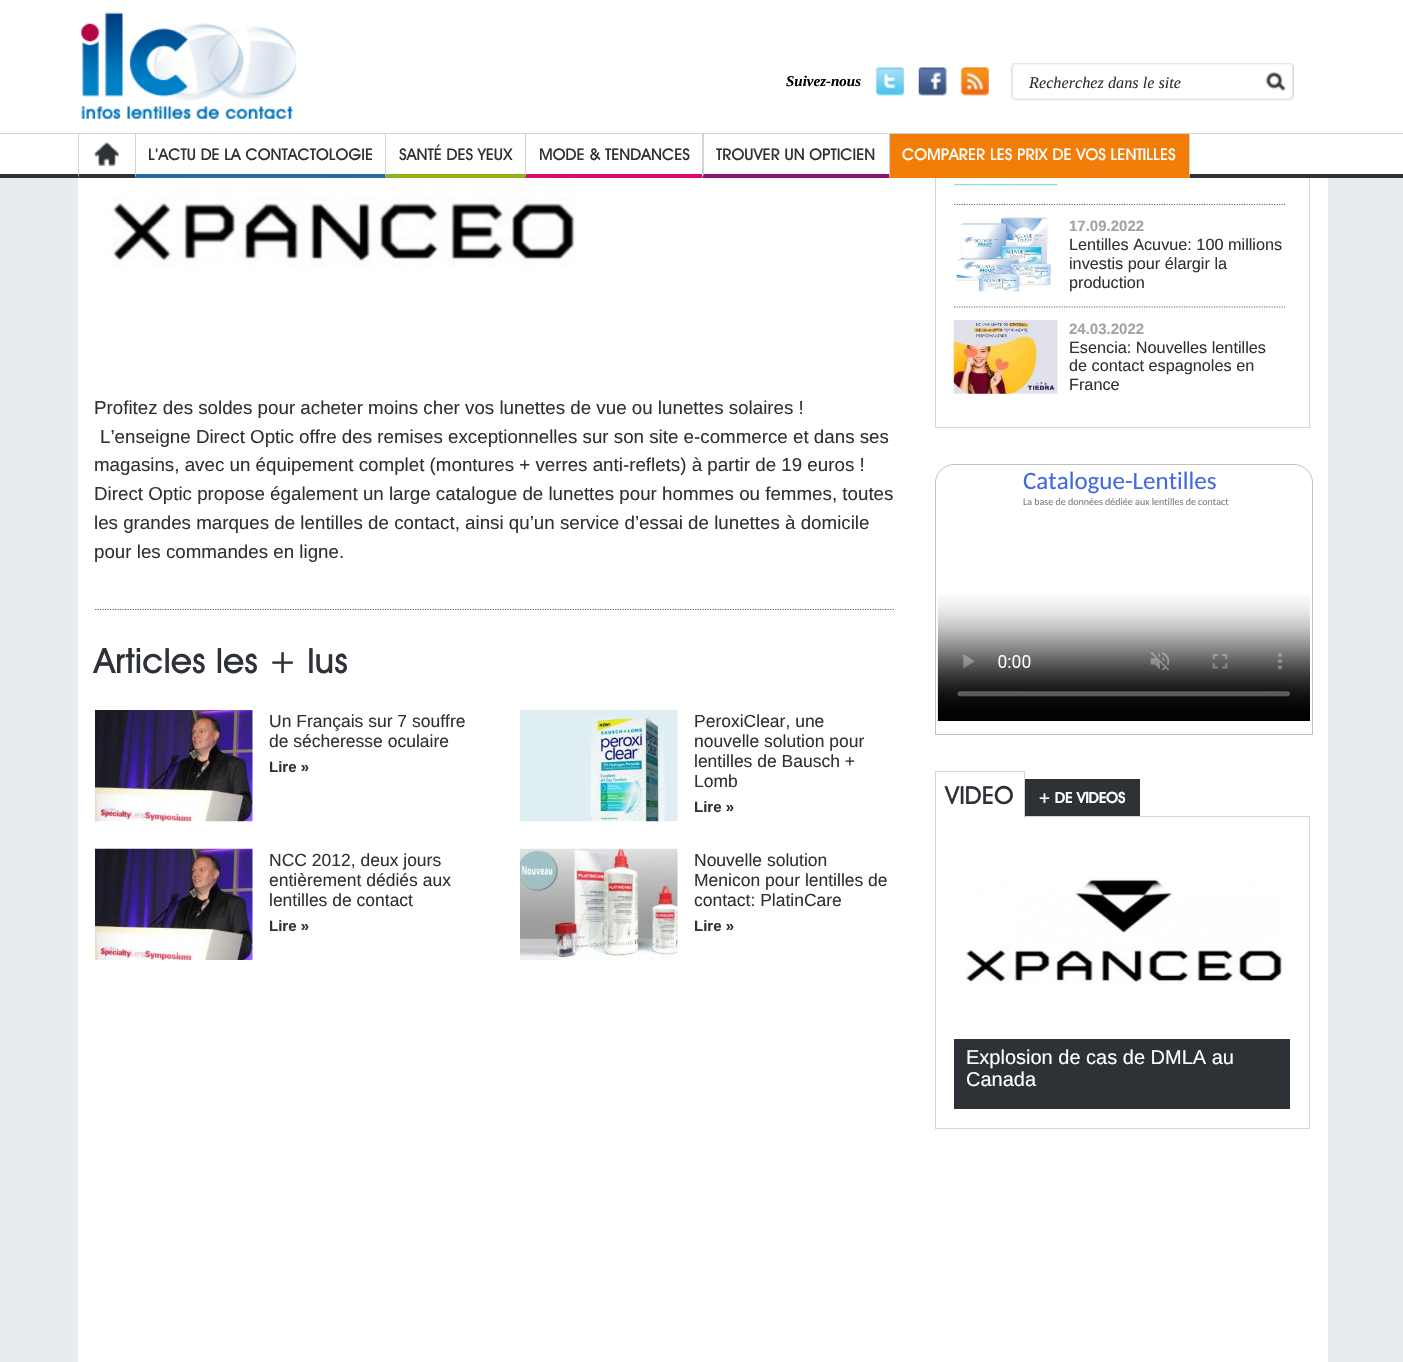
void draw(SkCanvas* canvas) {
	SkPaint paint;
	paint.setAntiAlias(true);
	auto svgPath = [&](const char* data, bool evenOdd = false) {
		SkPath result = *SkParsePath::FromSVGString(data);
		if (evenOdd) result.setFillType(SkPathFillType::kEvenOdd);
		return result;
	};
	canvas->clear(0xffe8ecf0);
	paint.setColor(0xffffffff);
	canvas->drawRect(SkRect::MakeXYWH(78, 178, 1250, 1184), paint);
	paint.setStroke(true);
	paint.setStrokeWidth(1);
	paint.setColor(0xffd0d7dc);
	canvas->drawRect(SkRect::MakeXYWH(935.5, -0.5, 374, 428), paint);
	paint.setStroke(false);
	paint.setColor(0xffffffff);
	canvas->drawRect(SkRect::MakeXYWH(0, 0, 1403, 133), paint);
	canvas->drawImageRect(SkImages::DeferredFromEncodedData(SkData::MakeFromFileName("img1.png")), SkRect::MakeXYWH(81, 12, 216, 107), SkSamplingOptions());
	SkFont f1(fontMgr->matchFamilyStyle("Liberation Serif", SkFontStyle::BoldItalic()), 15);
	f1.setSubpixel(true);
	paint.setColor(0xff000000);
	canvas->drawString("Suivez-nous", 786, 86, f1, paint);
	canvas->drawImageRect(SkImages::DeferredFromEncodedData(SkData::MakeFromFileName("img2.png")), SkRect::MakeXYWH(875, 67, 29, 29), SkSamplingOptions());
	canvas->drawImageRect(SkImages::DeferredFromEncodedData(SkData::MakeFromFileName("img3.png")), SkRect::MakeXYWH(918, 67, 29, 29), SkSamplingOptions());
	canvas->drawImageRect(SkImages::DeferredFromEncodedData(SkData::MakeFromFileName("img4.png")), SkRect::MakeXYWH(960, 67, 29, 29), SkSamplingOptions());
	canvas->drawImageRect(SkImages::DeferredFromEncodedData(SkData::MakeFromFileName("img5.png")), SkRect::MakeXYWH(1010, 63, 284, 38), SkSamplingOptions());
	SkFont f2(fontMgr->matchFamilyStyle("Liberation Serif", SkFontStyle::Italic()), 16.25);
	f2.setSubpixel(true);
	paint.setColor(0xff2e3237);
	canvas->drawString("Recherchez dans le site", 1029, 88, f2, paint);
	paint.setColor(0xffffffff);
	canvas->drawRect(SkRect::MakeXYWH(0, 134, 1403, 40), paint);
	paint.setColor(0xffd0d3d9);
	canvas->drawRect(SkRect::MakeXYWH(0, 133, 1403, 1), paint);
	paint.setColor(0xff2e3237);
	canvas->drawRect(SkRect::MakeXYWH(0, 174, 1403, 4), paint);
	paint.setColor(0xffd0d3d9);
	canvas->drawPath(svgPath("M78 178V134H79V174Z"), paint);
	canvas->drawImageRect(SkImages::DeferredFromEncodedData(SkData::MakeFromFileName("img6.png")), SkRect::MakeXYWH(94, 142, 25, 24), SkSamplingOptions());
	paint.setColor(0xff2170a8);
	canvas->drawPath(svgPath("M385 178H135L136 174H385Z"), paint);
	paint.setColor(0xffd0d3d9);
	canvas->drawPath(svgPath("M135 178V134H136V174Z"), paint);
	SkFont f3(fontMgr->matchFamilyStyle("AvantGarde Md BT", SkFontStyle(500, SkFontStyle::kNormal_Width, SkFontStyle::kUpright_Slant)), 16.25);
	f3.setSubpixel(true);
	paint.setColor(0xff2e3237);
	canvas->drawString("L’ACTU DE LA CONTACTOLOGIE", 148, 160, f3, paint);
	paint.setColor(0xff8eb31b);
	canvas->drawPath(svgPath("M525 178H385L386 174H525Z"), paint);
	paint.setColor(0xffd0d3d9);
	canvas->drawPath(svgPath("M385 178V134H386V174Z"), paint);
	paint.setColor(0xff2e3237);
	canvas->drawString("SANTÉ DES YEUX", 399, 160, f3, paint);
	paint.setColor(0xffdf0a6d);
	canvas->drawPath(svgPath("M702 178H525L526 174H702Z"), paint);
	paint.setColor(0xffd0d3d9);
	canvas->drawPath(svgPath("M525 178V134H526V174Z"), paint);
	paint.setColor(0xff2e3237);
	canvas->drawString("MODE & TENDANCES", 539, 160, f3, paint);
	paint.setColor(0xff85156d);
	canvas->drawPath(svgPath("M889 178H702L704 174H889Z"), paint);
	paint.setColor(0xffd0d3d9);
	canvas->drawPath(svgPath("M702 178V134H704V174Z"), paint);
	paint.setColor(0xff2e3237);
	canvas->drawString("TROUVER UN OPTICIEN", 716, 160, f3, paint);
	paint.setColor(0xfff27e09);
	canvas->drawRect(SkRect::MakeXYWH(889, 134, 301, 44), paint);
	paint.setColor(0xffd0d3d9);
	canvas->drawPath(svgPath("M1190 134V178L1189 174V134Z"), paint);
	paint.setColor(0xfff27e09);
	canvas->drawPath(svgPath("M1190 178H889L890 174H1189Z"), paint);
	paint.setColor(0xffd0d3d9);
	canvas->drawPath(svgPath("M889 178V134H890V174Z"), paint);
	paint.setColor(0xffffffff);
	canvas->drawString("COMPARER LES PRIX DE VOS LENTILLES", 902, 160, f3, paint);
	paint.setStroke(true);
	paint.setStrokeWidth(1.2);
	paint.setColor(0xff666666);
	paint.setPathEffect(SkDashPathEffect::Make({{1.25f, 1.25f}}, 0));
	canvas->drawPath(svgPath("M95 609.5H895"), paint);
	paint.setPathEffect(nullptr);
	canvas->drawImageRect(SkImages::DeferredFromEncodedData(SkData::MakeFromFileName("img7.png")), SkRect::MakeXYWH(106, 178, 470, 89), SkSamplingOptions());
	SkFont f4(fontMgr->matchFamilyStyle("Liberation Sans", SkFontStyle::Normal()), 18.75);
	f4.setSubpixel(true);
	paint.setStroke(false);
	paint.setColor(0xff2e3237);
	canvas->drawString("Profitez des soldes pour acheter moins cher vos lunettes de vue ou lunettes solaires !", 94, 414, f4, paint);
	canvas->drawString("L’enseigne Direct Optic offre des remises exceptionnelles sur son site e-commerce et dans ses", 100, 443, f4, paint);
	canvas->drawString("magasins, avec un équipement complet (montures + verres anti-reflets) à partir de 19 euros !", 94, 471, f4, paint);
	canvas->drawString("Direct Optic propose également un large catalogue de lunettes pour hommes ou femmes, toutes", 94, 500, f4, paint);
	canvas->drawString("les grandes marques de lentilles de contact, ainsi qu’un service d’essai de lunettes à domicile", 94, 529, f4, paint);
	canvas->drawString("pour les commandes en ligne.", 94, 558, f4, paint);
	SkFont f5(fontMgr->matchFamilyStyle("AvantGarde Md BT", SkFontStyle(500, SkFontStyle::kNormal_Width, SkFontStyle::kUpright_Slant)), 35);
	f5.setSubpixel(true);
	canvas->drawString("Articles les + lus", 94, 673, f5, paint);
	canvas->drawImageRect(SkImages::DeferredFromEncodedData(SkData::MakeFromFileName("img8.png")), SkRect::MakeXYWH(95, 710, 158, 112), SkSamplingOptions());
	SkFont f6(fontMgr->matchFamilyStyle("Liberation Sans", SkFontStyle::Normal()), 17.5);
	f6.setSubpixel(true);
	canvas->drawString("Un Français sur 7 souffre", 269, 727, f6, paint);
	canvas->drawString("de sécheresse oculaire", 269, 747, f6, paint);
	SkFont f7(fontMgr->matchFamilyStyle("Liberation Sans", SkFontStyle::Bold()), 15);
	f7.setSubpixel(true);
	canvas->drawString("Lire »", 269, 772, f7, paint);
	canvas->drawImageRect(SkImages::DeferredFromEncodedData(SkData::MakeFromFileName("img9.png")), SkRect::MakeXYWH(520, 710, 158, 112), SkSamplingOptions());
	canvas->drawString("PeroxiClear, une", 694, 727, f6, paint);
	canvas->drawString("nouvelle solution pour", 694, 747, f6, paint);
	canvas->drawString("lentilles de Bausch +", 694, 767, f6, paint);
	canvas->drawString("Lomb", 694, 787, f6, paint);
	canvas->drawString("Lire »", 694, 812, f7, paint);
	canvas->drawImageRect(SkImages::DeferredFromEncodedData(SkData::MakeFromFileName("img10.png")), SkRect::MakeXYWH(95, 848, 158, 112), SkSamplingOptions());
	canvas->drawString("NCC 2012, deux jours", 269, 866, f6, paint);
	canvas->drawString("entièrement dédiés aux", 269, 886, f6, paint);
	canvas->drawString("lentilles de contact", 269, 906, f6, paint);
	canvas->drawString("Lire »", 269, 931, f7, paint);
	canvas->drawImageRect(SkImages::DeferredFromEncodedData(SkData::MakeFromFileName("img11.png")), SkRect::MakeXYWH(520, 848, 158, 112), SkSamplingOptions());
	canvas->drawString("Nouvelle solution", 694, 866, f6, paint);
	canvas->drawString("Menicon pour lentilles de", 694, 886, f6, paint);
	canvas->drawString("contact: PlatinCare", 694, 906, f6, paint);
	canvas->drawString("Lire »", 694, 931, f7, paint);
	canvas->drawImageRect(SkImages::DeferredFromEncodedData(SkData::MakeFromFileName("img12.png")), SkRect::MakeXYWH(953, 178, 105, 9), SkSamplingOptions());
	paint.setStroke(true);
	paint.setColor(0xff666666);
	paint.setPathEffect(SkDashPathEffect::Make({{1.25f, 1.25f}}, 0));
	canvas->drawPath(svgPath("M954 204.5H1285"), paint);
	paint.setPathEffect(nullptr);
	canvas->drawImageRect(SkImages::DeferredFromEncodedData(SkData::MakeFromFileName("img13.png")), SkRect::MakeXYWH(954, 217, 97, 75), SkSamplingOptions());
	paint.setStroke(false);
	paint.setColor(0xffa2a3a4);
	canvas->drawString("17.09.2022", 1069, 231, f7, paint);
	SkFont f8(fontMgr->matchFamilyStyle("Liberation Sans", SkFontStyle::Normal()), 16.25);
	f8.setSubpixel(true);
	paint.setColor(0xff2e3237);
	canvas->drawString("Lentilles Acuvue: 100 millions", 1069, 250, f8, paint);
	canvas->drawString("investis pour élargir la", 1069, 269, f8, paint);
	canvas->drawString("production", 1069, 288, f8, paint);
	paint.setStroke(true);
	paint.setColor(0xff666666);
	paint.setPathEffect(SkDashPathEffect::Make({{1.25f, 1.25f}}, 0));
	canvas->drawPath(svgPath("M954 307H1285"), paint);
	paint.setPathEffect(nullptr);
	canvas->drawImageRect(SkImages::DeferredFromEncodedData(SkData::MakeFromFileName("img14.png")), SkRect::MakeXYWH(953, 320, 105, 74), SkSamplingOptions());
	paint.setStroke(false);
	paint.setColor(0xffa2a3a4);
	canvas->drawString("24.03.2022", 1069, 334, f7, paint);
	paint.setColor(0xff2e3237);
	canvas->drawString("Esencia: Nouvelles lentilles", 1069, 353, f8, paint);
	canvas->drawString("de contact espagnoles en", 1069, 371, f8, paint);
	canvas->drawString("France", 1069, 390, f8, paint);
	paint.setStroke(true);
	paint.setStrokeWidth(1);
	paint.setColor(0xffc0c0c0);
	canvas->drawPath(svgPath("M954 464.5H1294C1304 464.5 1312.5 473 1312.5 483V734.5H935.5V483C935.5 473 944 464.5 954 464.5Z"), paint);
	SkFont f9(fontMgr->matchFamilyStyle("Carlito", SkFontStyle::Normal()), 25);
	f9.setSubpixel(true);
	paint.setStroke(false);
	paint.setColor(0xff4169e1);
	canvas->drawString("Catalogue-Lentilles", 1023, 489, f9, paint);
	SkFont f10(fontMgr->matchFamilyStyle("Carlito", SkFontStyle::Normal()), 10);
	f10.setSubpixel(true);
	paint.setColor(0xff808080);
	canvas->drawString("La base de données dédiée aux lentilles de contact", 1023, 505, f10, paint);
	canvas->drawImageRect(SkImages::DeferredFromEncodedData(SkData::MakeFromFileName("img15.png")), SkRect::MakeXYWH(937, 595, 373, 126), SkSamplingOptions());
	paint.setStroke(true);
	paint.setColor(0xffd0d7dc);
	canvas->drawRect(SkRect::MakeXYWH(935.5, 816.5, 374, 312), paint);
	paint.setStroke(false);
	paint.setColor(0xffffffff);
	canvas->drawRect(SkRect::MakeXYWH(936, 816, 88, 1), paint);
	paint.setColor(0xffd0d7dc);
	canvas->drawRect(SkRect::MakeXYWH(935, 771, 90, 1), paint);
	canvas->drawRect(SkRect::MakeXYWH(1024, 771, 1, 47), paint);
	canvas->drawRect(SkRect::MakeXYWH(935, 771, 1, 47), paint);
	SkFont f11(fontMgr->matchFamilyStyle("AvantGarde Md BT", SkFontStyle(500, SkFontStyle::kNormal_Width, SkFontStyle::kUpright_Slant)), 25);
	f11.setSubpixel(true);
	paint.setColor(0xff2e3237);
	canvas->drawString("VIDEO", 945, 804, f11, paint);
	canvas->drawRect(SkRect::MakeXYWH(1025, 779, 115, 37), paint);
	SkFont f12(fontMgr->matchFamilyStyle("AvantGarde Md BT", SkFontStyle::Bold()), 15);
	f12.setSubpixel(true);
	paint.setColor(0xffffffff);
	canvas->drawString("+ DE VIDEOS", 1038, 803, f12, paint);
	canvas->drawImageRect(SkImages::DeferredFromEncodedData(SkData::MakeFromFileName("img16.png")), SkRect::MakeXYWH(966, 878, 317, 107), SkSamplingOptions());
	paint.setColor(0xff2e3237);
	canvas->drawRect(SkRect::MakeXYWH(954, 1039, 336, 70), paint);
	SkFont f13(fontMgr->matchFamilyStyle("Liberation Sans", SkFontStyle::Normal()), 20);
	f13.setSubpixel(true);
	paint.setColor(0xffffffff);
	canvas->drawString("Explosion de cas de DMLA au", 966, 1064, f13, paint);
	canvas->drawString("Canada", 966, 1086, f13, paint);
}
